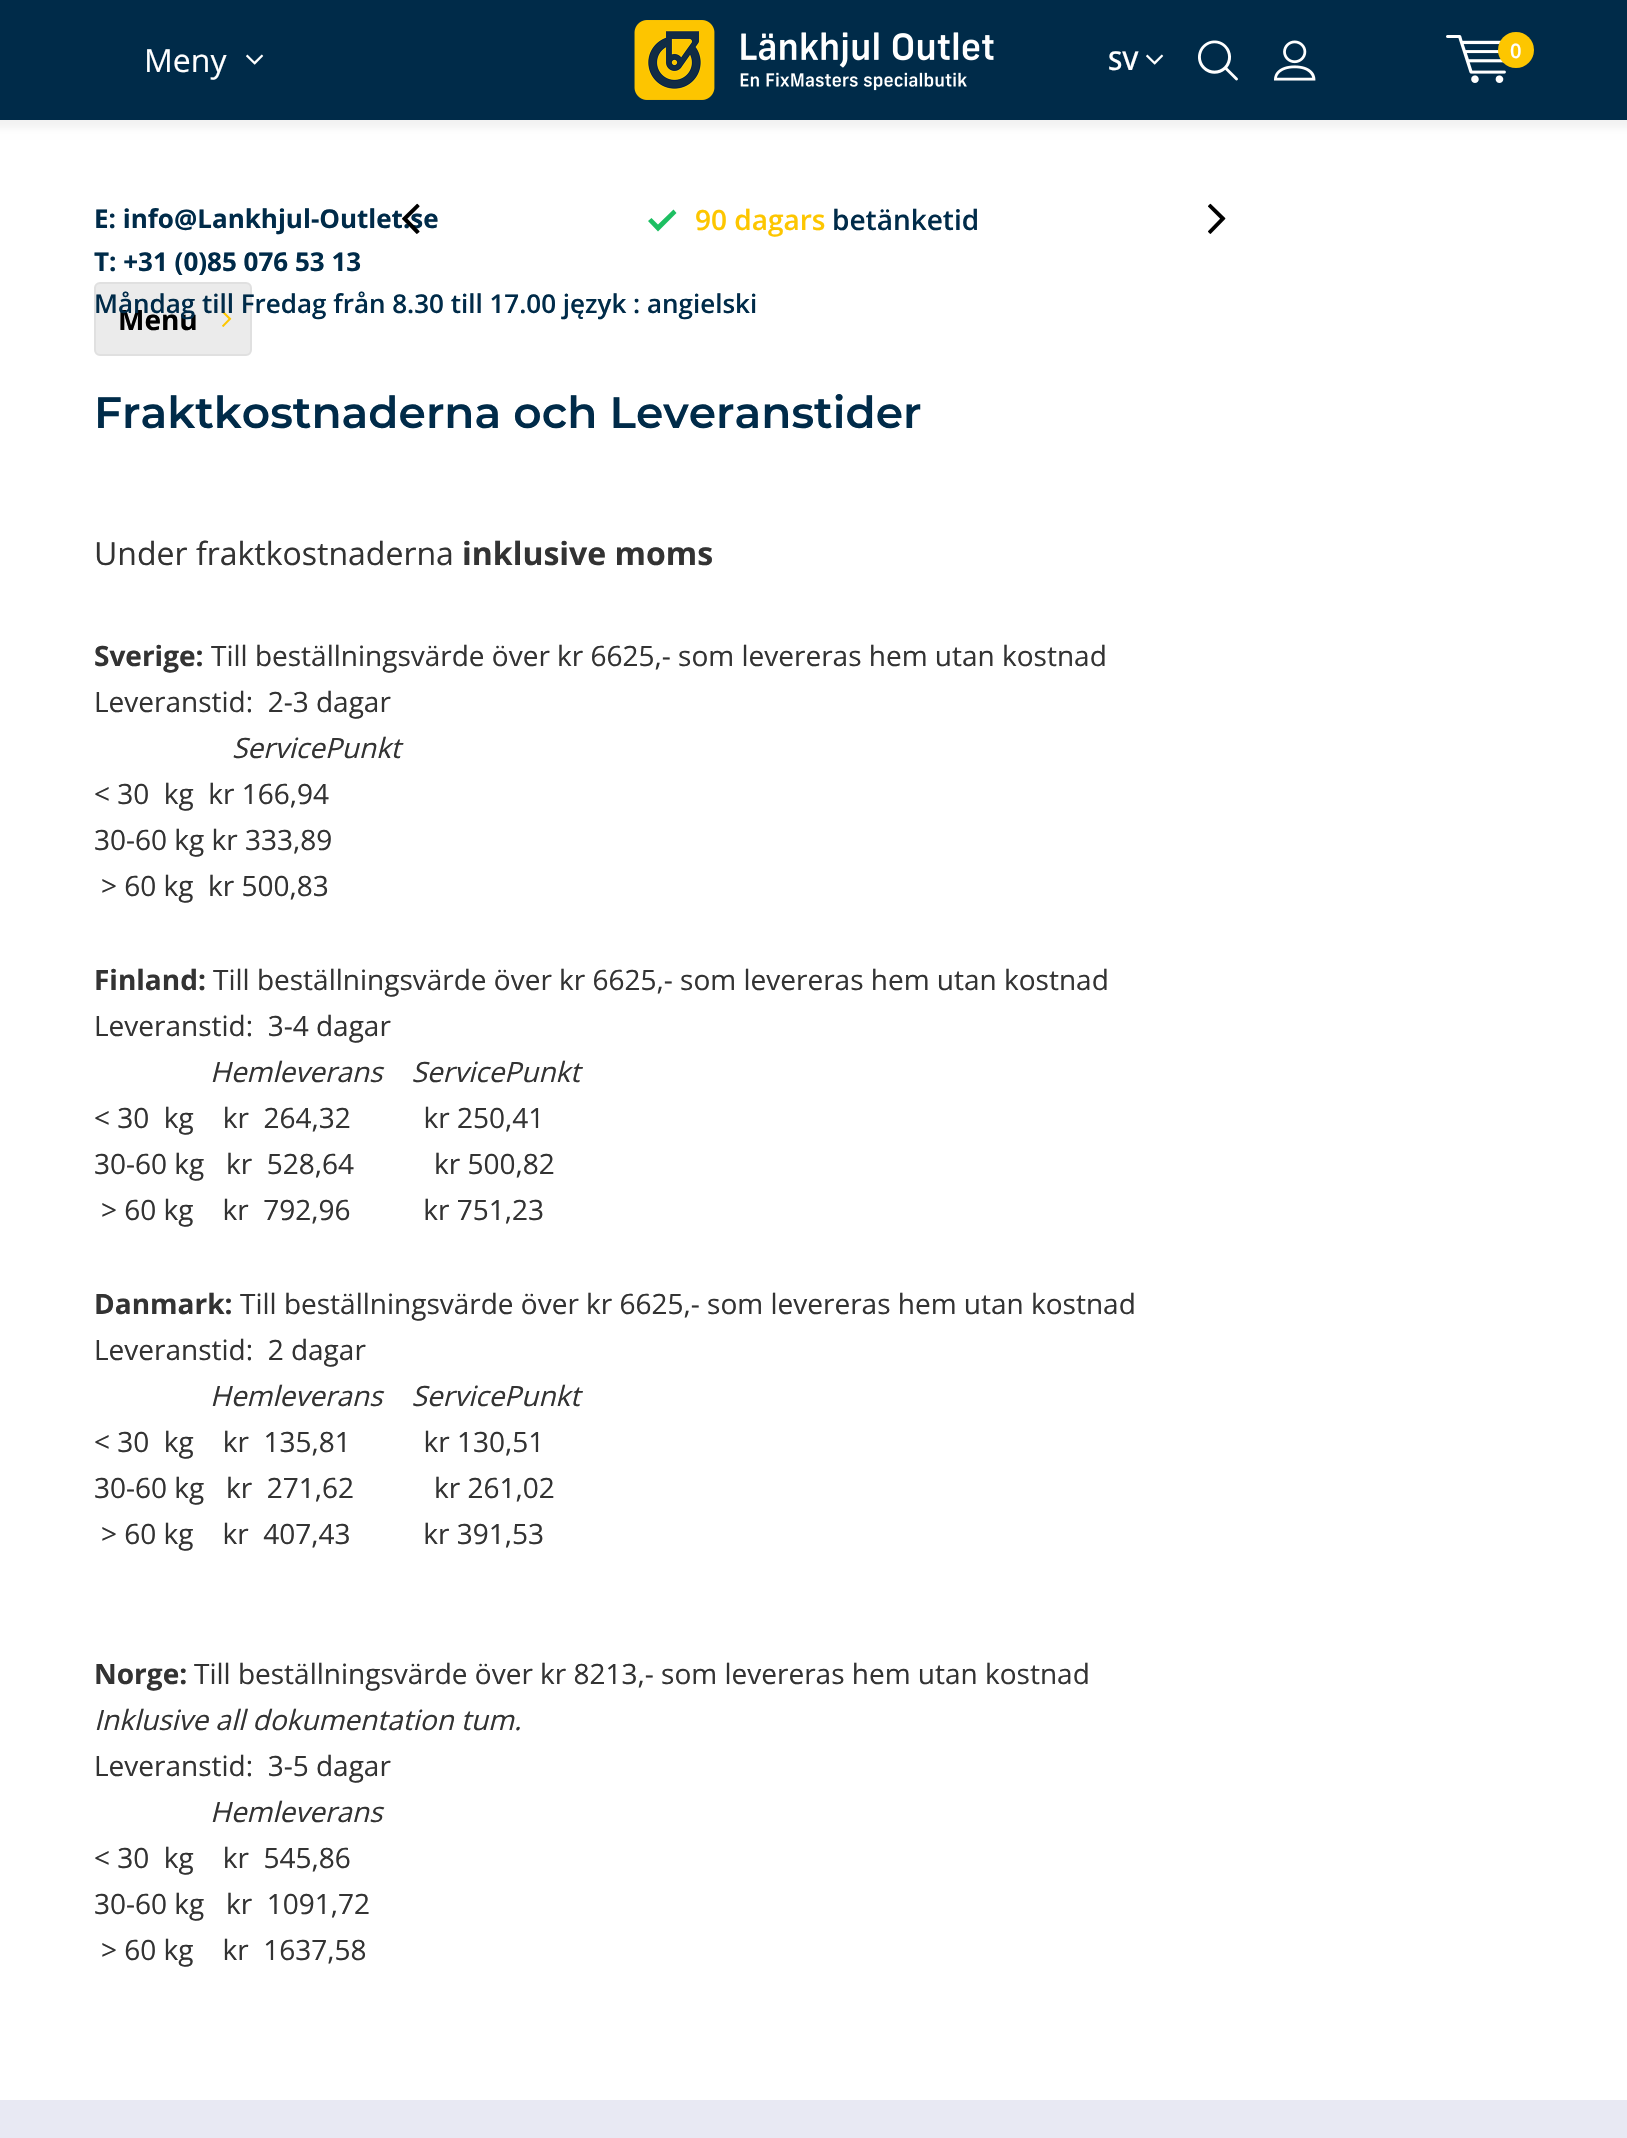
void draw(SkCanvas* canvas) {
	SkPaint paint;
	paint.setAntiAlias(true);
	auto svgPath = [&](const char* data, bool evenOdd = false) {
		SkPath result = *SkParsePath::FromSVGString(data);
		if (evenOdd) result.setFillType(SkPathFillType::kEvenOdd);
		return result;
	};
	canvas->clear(0xffffffff);
	paint.setColor(0x0d000000);
	paint.setMaskFilter(SkMaskFilter::MakeBlur(kNormal_SkBlurStyle, 4));
	canvas->drawRect(SkRect::MakeXYWH(-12, 8, 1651, 120), paint);
	paint.setMaskFilter(nullptr);
	paint.setColor(0xff002b49);
	canvas->drawRect(SkRect::MakeXYWH(0, 0, 1627, 120), paint);
	canvas->drawImageRect(SkImages::DeferredFromEncodedData(SkData::MakeFromFileName("img1.png")), SkRect::MakeXYWH(634, 20, 360, 80), SkSamplingOptions());
	SkFont f1(fontMgr->matchFamilyStyle("Open Sans", SkFontStyle::Normal()), 32);
	f1.setSubpixel(true);
	paint.setColor(0xffffffff);
	canvas->drawString("Meny", 144, 72, f1, paint);
	canvas->drawImageRect(SkImages::DeferredFromEncodedData(SkData::MakeFromFileName("img2.png")), SkRect::MakeXYWH(246, 54, 18, 11), SkSamplingOptions());
	SkFont f2(fontMgr->matchFamilyStyle("Open Sans", SkFontStyle(600, SkFontStyle::kNormal_Width, SkFontStyle::kUpright_Slant)), 26);
	f2.setSubpixel(true);
	canvas->drawString("SV", 1108, 70, f2, paint);
	canvas->drawImageRect(SkImages::DeferredFromEncodedData(SkData::MakeFromFileName("img2.png")), SkRect::MakeXYWH(1146, 54, 18, 11), SkSamplingOptions());
	canvas->drawImageRect(SkImages::DeferredFromEncodedData(SkData::MakeFromFileName("img3.png")), SkRect::MakeXYWH(1198, 40, 40, 41), SkSamplingOptions());
	canvas->drawImageRect(SkImages::DeferredFromEncodedData(SkData::MakeFromFileName("img4.png")), SkRect::MakeXYWH(1274, 40, 42, 41), SkSamplingOptions());
	canvas->drawImageRect(SkImages::DeferredFromEncodedData(SkData::MakeFromFileName("img5.png")), SkRect::MakeXYWH(1446, 35, 60, 48), SkSamplingOptions());
	paint.setColor(0xfffdc600);
	canvas->drawCircle(1516, 50, 18, paint);
	SkFont f3(fontMgr->matchFamilyStyle("Open Sans", SkFontStyle(600, SkFontStyle::kNormal_Width, SkFontStyle::kUpright_Slant)), 20);
	f3.setSubpixel(true);
	paint.setColor(0xffffffff);
	canvas->drawString("0", 1510, 58, f3, paint);
	SkFont f4(fontMgr->matchFamilyStyle("Open Sans", SkFontStyle::Bold()), 26);
	f4.setSubpixel(true);
	paint.setColor(0xff002b49);
	canvas->drawString("E: info@Lankhjul-Outlet.se", 94, 228, f4, paint);
	canvas->drawString("T: +31 (0)85 076 53 13", 94, 271, f4, paint);
	paint.setColor(0xffebebeb);
	canvas->drawRoundRect(SkRect::MakeXYWH(95, 283, 156, 72), 5, 5, paint);
	paint.setStroke(true);
	paint.setStrokeWidth(2);
	paint.setColor(0xffe0e0e0);
	canvas->drawRoundRect(SkRect::MakeXYWH(95, 283, 156, 72), 5, 5, paint);
	SkFont f5(fontMgr->matchFamilyStyle("Open Sans", SkFontStyle::Bold()), 28);
	f5.setSubpixel(true);
	paint.setStroke(false);
	paint.setColor(0xff000000);
	canvas->drawString("Menu", 118, 330, f5, paint);
	canvas->drawImageRect(SkImages::DeferredFromEncodedData(SkData::MakeFromFileName("img8.png")), SkRect::MakeXYWH(222, 311, 10, 16), SkSamplingOptions());
	paint.setColor(0xff002b49);
	canvas->drawString("Måndag till Fredag från 8.30 till 17.00 język : angielski", 94, 313, f2, paint);
	canvas->drawImageRect(SkImages::DeferredFromEncodedData(SkData::MakeFromFileName("img6.png")), SkRect::MakeXYWH(402, 203, 18, 31), SkSamplingOptions());
	canvas->drawImageRect(SkImages::DeferredFromEncodedData(SkData::MakeFromFileName("img7.png")), SkRect::MakeXYWH(1208, 203, 18, 31), SkSamplingOptions());
	paint.setColor(0xff1dbf62);
	canvas->drawPath(svgPath("M673.5 209.5L658 224.5L651.5 218L648 221L658 231.5L676.5 213Z"), paint);
	SkFont f6(fontMgr->matchFamilyStyle("Open Sans", SkFontStyle(600, SkFontStyle::kNormal_Width, SkFontStyle::kUpright_Slant)), 28);
	f6.setSubpixel(true);
	paint.setColor(0xfffdc600);
	canvas->drawString("90 dagars", 695, 230, f6, paint);
	paint.setColor(0xff002b49);
	canvas->drawString("betänketid", 832, 230, f6, paint);
	SkFont f7(fontMgr->matchFamilyStyle("Montserrat", SkFontStyle(600, SkFontStyle::kNormal_Width, SkFontStyle::kUpright_Slant)), 44);
	f7.setSubpixel(true);
	canvas->drawString("Fraktkostnaderna och Leveranstider", 94, 428, f7, paint);
	paint.setColor(0xff333333);
	canvas->drawString("Under fraktkostnaderna", 94, 565, f1, paint);
	SkFont f8(fontMgr->matchFamilyStyle("Open Sans", SkFontStyle::Bold()), 32);
	f8.setSubpixel(true);
	canvas->drawString("inklusive moms", 462, 565, f8, paint);
	canvas->drawString("Sverige:", 94, 666, f5, paint);
	SkFont f9(fontMgr->matchFamilyStyle("Open Sans", SkFontStyle::Normal()), 28);
	f9.setSubpixel(true);
	canvas->drawString("Till beställningsvärde över kr 6625,- som levereras hem utan kostnad", 211, 666, f9, paint);
	canvas->drawString("Leveranstid:  2-3 dagar", 94, 712, f9, paint);
	SkFont f10(fontMgr->matchFamilyStyle("Open Sans", SkFontStyle::Italic()), 28);
	f10.setSubpixel(true);
	canvas->drawString("ServicePunkt", 232, 758, f10, paint);
	canvas->drawString("< 30  kg  kr 166,94", 94, 804, f9, paint);
	canvas->drawString("30-60 kg kr 333,89", 94, 850, f9, paint);
	canvas->drawString("> 60 kg  kr 500,83", 101, 896, f9, paint);
	canvas->drawString("Finland:", 94, 990, f5, paint);
	canvas->drawString("Till beställningsvärde över kr 6625,- som levereras hem utan kostnad", 213, 990, f9, paint);
	canvas->drawString("Leveranstid:  3-4 dagar", 94, 1036, f9, paint);
	canvas->drawString("Hemleverans    ServicePunkt", 210, 1082, f10, paint);
	canvas->drawString("< 30  kg    kr  264,32          kr 250,41", 94, 1128, f9, paint);
	canvas->drawString("30-60 kg   kr  528,64           kr 500,82", 94, 1174, f9, paint);
	canvas->drawString("> 60 kg    kr  792,96          kr 751,23", 101, 1220, f9, paint);
	canvas->drawString("Danmark:", 94, 1314, f5, paint);
	canvas->drawString("Till beställningsvärde över kr 6625,- som levereras hem utan kostnad", 240, 1314, f9, paint);
	canvas->drawString("Leveranstid:  2 dagar", 94, 1360, f9, paint);
	canvas->drawString("Hemleverans    ServicePunkt", 210, 1406, f10, paint);
	canvas->drawString("< 30  kg    kr  135,81          kr 130,51", 94, 1452, f9, paint);
	canvas->drawString("30-60 kg   kr  271,62           kr 261,02", 94, 1498, f9, paint);
	canvas->drawString("> 60 kg    kr  407,43          kr 391,53", 101, 1544, f9, paint);
	canvas->drawString("Norge:", 94, 1684, f5, paint);
	canvas->drawString("Till beställningsvärde över kr 8213,- som levereras hem utan kostnad", 194, 1684, f9, paint);
	canvas->drawString("Inklusive all dokumentation tum.", 94, 1730, f10, paint);
	canvas->drawString("Leveranstid:  3-5 dagar", 94, 1776, f9, paint);
	canvas->drawString("Hemleverans", 210, 1822, f10, paint);
	canvas->drawString("< 30  kg    kr  545,86", 94, 1868, f9, paint);
	canvas->drawString("30-60 kg   kr  1091,72", 94, 1914, f9, paint);
	canvas->drawString("> 60 kg    kr  1637,58", 101, 1960, f9, paint);
	paint.setColor(0xffe8e9f3);
	canvas->drawRect(SkRect::MakeXYWH(0, 2100, 1627, 38), paint);
}
